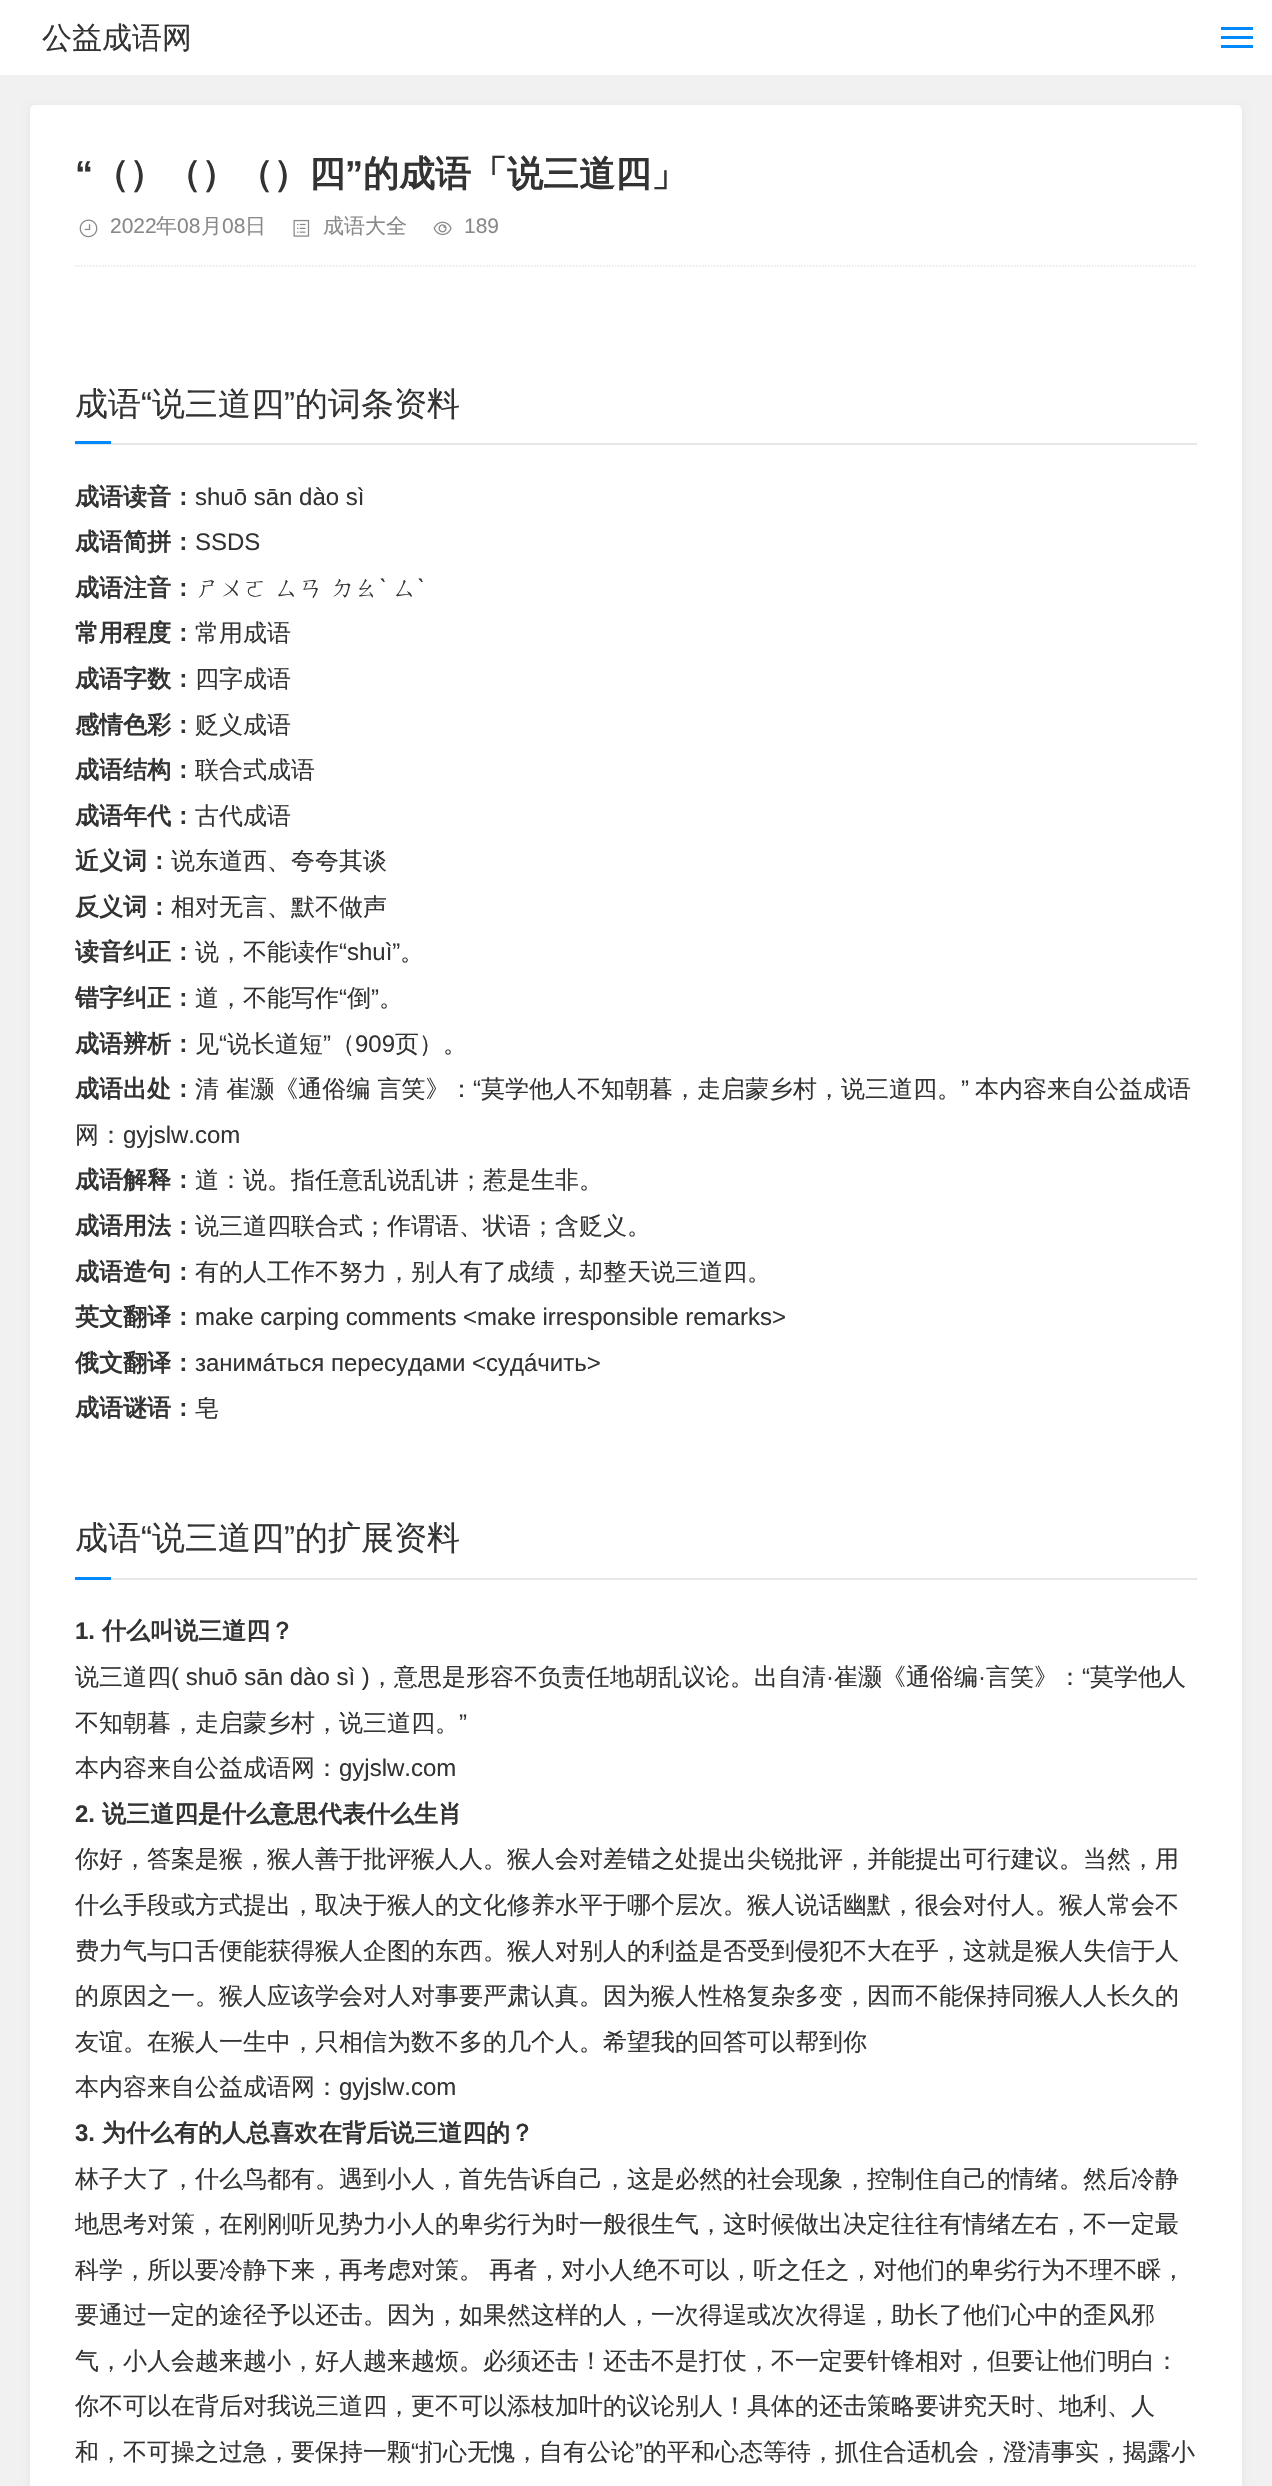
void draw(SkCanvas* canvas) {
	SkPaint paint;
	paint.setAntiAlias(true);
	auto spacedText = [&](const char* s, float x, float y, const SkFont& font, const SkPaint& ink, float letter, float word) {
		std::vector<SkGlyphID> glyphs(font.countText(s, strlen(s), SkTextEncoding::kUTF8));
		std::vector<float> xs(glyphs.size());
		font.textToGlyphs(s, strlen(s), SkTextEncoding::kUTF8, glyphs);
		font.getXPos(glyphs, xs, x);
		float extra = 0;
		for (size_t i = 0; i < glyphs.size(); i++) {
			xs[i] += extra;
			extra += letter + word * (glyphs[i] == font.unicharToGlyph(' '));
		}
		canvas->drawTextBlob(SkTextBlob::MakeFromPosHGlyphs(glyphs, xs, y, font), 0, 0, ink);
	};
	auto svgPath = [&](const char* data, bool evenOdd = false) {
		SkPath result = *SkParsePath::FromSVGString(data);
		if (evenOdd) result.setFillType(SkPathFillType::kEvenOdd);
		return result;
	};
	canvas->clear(0xfff1f1f1);
	paint.setColor(0xffffffff);
	canvas->drawRect(SkRect::MakeXYWH(0, 0, 1272, 75), paint);
	SkFont f1(fontMgr->matchFamilyStyle("WenQuanYi Zen Hei", SkFontStyle(500, SkFontStyle::kNormal_Width, SkFontStyle::kUpright_Slant)), 30);
	f1.setSubpixel(true);
	paint.setColor(0xff333333);
	canvas->drawString("公益成语网", 42, 48, f1, paint);
	paint.setColor(0xff0188fb);
	canvas->drawRect(SkRect::MakeXYWH(1221, 27, 32, 3), paint);
	canvas->drawRect(SkRect::MakeXYWH(1221, 36, 32, 3), paint);
	canvas->drawRect(SkRect::MakeXYWH(1221, 45, 32, 3), paint);
	paint.setColor(0x0d000000);
	paint.setMaskFilter(SkMaskFilter::MakeBlur(kNormal_SkBlurStyle, 4));
	canvas->drawRoundRect(SkRect::MakeXYWH(30, 107, 1212, 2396), 5, 5, paint);
	paint.setMaskFilter(nullptr);
	paint.setColor(0xffffffff);
	canvas->drawRoundRect(SkRect::MakeXYWH(30, 105, 1212, 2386), 5, 5, paint);
	SkFont f2(fontMgr->matchFamilyStyle("Liberation Sans", SkFontStyle::Bold()), 36);
	f2.setSubpixel(true);
	paint.setColor(0xff333333);
	canvas->drawString("“", 75, 186, f2, paint);
	SkFont f3(fontMgr->matchFamilyStyle("WenQuanYi Zen Hei", SkFontStyle::Bold()), 36);
	f3.setSubpixel(true);
	canvas->drawString("（）（）（）四", 93, 186, f3, paint);
	canvas->drawString("”", 345, 186, f2, paint);
	canvas->drawString("的成语「说三道四」", 363, 186, f3, paint);
	canvas->drawImageRect(SkImages::DeferredFromEncodedData(SkData::MakeFromFileName("img1.png")), SkRect::MakeXYWH(79, 219, 19, 19), SkSamplingOptions());
	SkFont f4(fontMgr->matchFamilyStyle("Liberation Sans", SkFontStyle::Normal()), 21);
	f4.setSubpixel(true);
	paint.setColor(0xff888888);
	canvas->drawString("2022", 110, 233, f4, paint);
	SkFont f5(fontMgr->matchFamilyStyle("WenQuanYi Zen Hei", SkFontStyle(500, SkFontStyle::kNormal_Width, SkFontStyle::kUpright_Slant)), 21);
	f5.setSubpixel(true);
	canvas->drawString("年", 156, 233, f5, paint);
	canvas->drawString("08", 177, 233, f4, paint);
	canvas->drawString("月", 201, 233, f5, paint);
	canvas->drawString("08", 222, 233, f4, paint);
	canvas->drawString("日", 245, 233, f5, paint);
	canvas->drawImageRect(SkImages::DeferredFromEncodedData(SkData::MakeFromFileName("img2.png")), SkRect::MakeXYWH(293, 219, 17, 18), SkSamplingOptions());
	canvas->drawString("成语大全", 323, 233, f5, paint);
	canvas->drawImageRect(SkImages::DeferredFromEncodedData(SkData::MakeFromFileName("img3.png")), SkRect::MakeXYWH(433, 221, 19, 15), SkSamplingOptions());
	canvas->drawString("189", 464, 233, f4, paint);
	paint.setStroke(true);
	paint.setStrokeWidth(1.5);
	paint.setColor(0xffe4e8eb);
	paint.setPathEffect(SkDashPathEffect::Make({{1.5f, 1.5f}}, 0));
	canvas->drawPath(svgPath("M75 266H1197"), paint);
	paint.setPathEffect(nullptr);
	paint.setStroke(false);
	canvas->drawRect(SkRect::MakeXYWH(75, 443, 1122, 2), paint);
	SkFont f6(fontMgr->matchFamilyStyle("WenQuanYi Zen Hei", SkFontStyle(500, SkFontStyle::kNormal_Width, SkFontStyle::kUpright_Slant)), 33);
	f6.setSubpixel(true);
	paint.setColor(0xff333333);
	canvas->drawString("成语", 75, 415, f6, paint);
	SkFont f7(fontMgr->matchFamilyStyle("Liberation Sans", SkFontStyle::Normal()), 33);
	f7.setSubpixel(true);
	canvas->drawString("“", 141, 415, f7, paint);
	canvas->drawString("说三道四", 152, 415, f6, paint);
	canvas->drawString("”", 284, 415, f7, paint);
	canvas->drawString("的词条资料", 295, 415, f6, paint);
	paint.setColor(0xff0188fb);
	canvas->drawRect(SkRect::MakeXYWH(75, 441, 36, 3), paint);
	SkFont f8(fontMgr->matchFamilyStyle("WenQuanYi Zen Hei", SkFontStyle::Bold()), 24);
	f8.setSubpixel(true);
	paint.setColor(0xff333333);
	canvas->drawString("成语读音：", 75, 505, f8, paint);
	SkFont f9(fontMgr->matchFamilyStyle("Liberation Sans", SkFontStyle::Normal()), 24);
	f9.setSubpixel(true);
	canvas->drawString("shuō sān dào sì", 195, 505, f9, paint);
	canvas->drawString("成语简拼：", 75, 550, f8, paint);
	canvas->drawString("SSDS", 195, 550, f9, paint);
	canvas->drawString("成语注音：", 75, 596, f8, paint);
	SkFont f10(fontMgr->matchFamilyStyle("WenQuanYi Zen Hei", SkFontStyle(500, SkFontStyle::kNormal_Width, SkFontStyle::kUpright_Slant)), 24);
	f10.setSubpixel(true);
	canvas->drawString("ㄕㄨㄛ ㄙㄢ ㄉㄠ", 195, 596, f10, paint);
	canvas->drawString("ˋ", 379, 596, f9, paint);
	canvas->drawString("ㄙ", 393, 596, f10, paint);
	canvas->drawString("ˋ", 417, 596, f9, paint);
	canvas->drawString("常用程度：", 75, 641, f8, paint);
	canvas->drawString("常用成语", 195, 641, f10, paint);
	canvas->drawString("成语字数：", 75, 687, f8, paint);
	canvas->drawString("四字成语", 195, 687, f10, paint);
	canvas->drawString("感情色彩：", 75, 733, f8, paint);
	canvas->drawString("贬义成语", 195, 733, f10, paint);
	canvas->drawString("成语结构：", 75, 778, f8, paint);
	canvas->drawString("联合式成语", 195, 778, f10, paint);
	canvas->drawString("成语年代：", 75, 824, f8, paint);
	canvas->drawString("古代成语", 195, 824, f10, paint);
	canvas->drawString("近义词：", 75, 869, f8, paint);
	canvas->drawString("说东道西、夸夸其谈", 171, 869, f10, paint);
	canvas->drawString("反义词：", 75, 915, f8, paint);
	canvas->drawString("相对无言、默不做声", 171, 915, f10, paint);
	canvas->drawString("读音纠正：", 75, 960, f8, paint);
	canvas->drawString("说，不能读作", 195, 960, f10, paint);
	canvas->drawString("“shuì”", 339, 960, f9, paint);
	canvas->drawString("。", 400, 960, f10, paint);
	canvas->drawString("错字纠正：", 75, 1006, f8, paint);
	canvas->drawString("道，不能写作", 195, 1006, f10, paint);
	canvas->drawString("“", 339, 1006, f9, paint);
	canvas->drawString("倒", 347, 1006, f10, paint);
	canvas->drawString("”", 371, 1006, f9, paint);
	canvas->drawString("。", 379, 1006, f10, paint);
	canvas->drawString("成语辨析：", 75, 1052, f8, paint);
	canvas->drawString("见", 195, 1052, f10, paint);
	canvas->drawString("“", 219, 1052, f9, paint);
	canvas->drawString("说长道短", 227, 1052, f10, paint);
	canvas->drawString("”", 323, 1052, f9, paint);
	canvas->drawString("（", 331, 1052, f10, paint);
	canvas->drawString("909", 355, 1052, f9, paint);
	canvas->drawString("页）。", 395, 1052, f10, paint);
	canvas->drawString("成语出处：", 75, 1097, f8, paint);
	canvas->drawString("清 崔灏《通俗编 言笑》：", 195, 1097, f10, paint);
	canvas->drawString("“", 473, 1097, f9, paint);
	canvas->drawString("莫学他人不知朝暮，走启蒙乡村，说三道四。", 481, 1097, f10, paint);
	canvas->drawString("”", 961, 1097, f9, paint);
	canvas->drawString("本内容来自公益成语", 975, 1097, f10, paint);
	canvas->drawString("网：", 75, 1143, f10, paint);
	canvas->drawString("gyjslw.com", 123, 1143, f9, paint);
	canvas->drawString("成语解释：", 75, 1188, f8, paint);
	canvas->drawString("道：说。指任意乱说乱讲；惹是生非。", 195, 1188, f10, paint);
	canvas->drawString("成语用法：", 75, 1234, f8, paint);
	canvas->drawString("说三道四联合式；作谓语、状语；含贬义。", 195, 1234, f10, paint);
	canvas->drawString("成语造句：", 75, 1280, f8, paint);
	canvas->drawString("有的人工作不努力，别人有了成绩，却整天说三道四。", 195, 1280, f10, paint);
	canvas->drawString("英文翻译：", 75, 1325, f8, paint);
	canvas->drawString("make carping comments <make irresponsible remarks>", 195, 1325, f9, paint);
	canvas->drawString("俄文翻译：", 75, 1371, f8, paint);
	canvas->drawString("занимáться пересудами <судáчить>", 195, 1371, f9, paint);
	canvas->drawString("成语谜语：", 75, 1416, f8, paint);
	canvas->drawString("皂", 195, 1416, f10, paint);
	paint.setColor(0xffe4e8eb);
	canvas->drawRect(SkRect::MakeXYWH(111, 1578, 1086, 2), paint);
	paint.setColor(0xff333333);
	canvas->drawString("成语", 75, 1549, f6, paint);
	canvas->drawString("“", 141, 1549, f7, paint);
	canvas->drawString("说三道四", 152, 1549, f6, paint);
	canvas->drawString("”", 284, 1549, f7, paint);
	canvas->drawString("的扩展资料", 295, 1549, f6, paint);
	paint.setColor(0xff0188fb);
	canvas->drawRect(SkRect::MakeXYWH(75, 1577, 36, 3), paint);
	SkFont f11(fontMgr->matchFamilyStyle("Liberation Sans", SkFontStyle::Bold()), 24);
	f11.setSubpixel(true);
	paint.setColor(0xff333333);
	canvas->drawString("1.", 75, 1639, f11, paint);
	canvas->drawString("什么叫说三道四？", 102, 1639, f8, paint);
	canvas->drawString("说三道四", 75, 1685, f10, paint);
	canvas->drawString("( shuō sān dào sì )", 171, 1685, f9, paint);
	canvas->drawString("，意思是形容不负责任地胡乱议论。出自清", 370, 1685, f10, paint);
	canvas->drawString("崔灏《通俗编", 834, 1685, f10, paint);
	canvas->drawString("言笑》：", 986, 1685, f10, paint);
	canvas->drawString("“", 1082, 1685, f9, paint);
	canvas->drawString("莫学他人", 1090, 1685, f10, paint);
	canvas->drawString("·", 826, 1685, f9, paint);
	canvas->drawString("·", 978, 1685, f9, paint);
	canvas->drawString("不知朝暮，走启蒙乡村，说三道四。", 75, 1731, f10, paint);
	canvas->drawString("”", 459, 1731, f9, paint);
	canvas->drawString("本内容来自公益成语网：", 75, 1776, f10, paint);
	canvas->drawString("gyjslw.com", 339, 1776, f9, paint);
	canvas->drawString("2.", 75, 1822, f11, paint);
	canvas->drawString("说三道四是什么意思代表什么生肖", 102, 1822, f8, paint);
	canvas->drawString("你好，答案是猴，猴人善于批评猴人人。猴人会对差错之处提出尖锐批评，并能提出可行建议。当然，用", 75, 1867, f10, paint);
	canvas->drawString("什么手段或方式提出，取决于猴人的文化修养水平于哪个层次。猴人说话幽默，很会对付人。猴人常会不", 75, 1913, f10, paint);
	canvas->drawString("费力气与口舌便能获得猴人企图的东西。猴人对别人的利益是否受到侵犯不大在乎，这就是猴人失信于人", 75, 1959, f10, paint);
	canvas->drawString("的原因之一。猴人应该学会对人对事要严肃认真。因为猴人性格复杂多变，因而不能保持同猴人人长久的", 75, 2004, f10, paint);
	canvas->drawString("友谊。在猴人一生中，只相信为数不多的几个人。希望我的回答可以帮到你", 75, 2050, f10, paint);
	canvas->drawString("本内容来自公益成语网：", 75, 2095, f10, paint);
	canvas->drawString("gyjslw.com", 339, 2095, f9, paint);
	canvas->drawString("3.", 75, 2141, f11, paint);
	canvas->drawString("为什么有的人总喜欢在背后说三道四的？", 102, 2141, f8, paint);
	canvas->drawString("林子大了，什么鸟都有。遇到小人，首先告诉自己，这是必然的社会现象，控制住自己的情绪。然后冷静", 75, 2187, f10, paint);
	canvas->drawString("地思考对策，在刚刚听见势力小人的卑劣行为时一般很生气，这时候做出决定往往有情绪左右，不一定最", 75, 2232, f10, paint);
	spacedText("科学，所以要冷静下来，再考虑对策。 再者，对小人绝不可以，听之任之，对他们的卑劣行为不理不睬，", 75, 2278, f10, paint, 0, -1);
	canvas->drawString("要通过一定的途径予以还击。因为，如果然这样的人，一次得逞或次次得逞，助长了他们心中的歪风邪", 75, 2323, f10, paint);
	canvas->drawString("气，小人会越来越小，好人越来越烦。必须还击！还击不是打仗，不一定要针锋相对，但要让他们明白：", 75, 2369, f10, paint);
	canvas->drawString("你不可以在背后对我说三道四，更不可以添枝加叶的议论别人！具体的还击策略要讲究天时、地利、人", 75, 2414, f10, paint);
	canvas->drawString("和，不可操之过急，要保持一颗", 75, 2460, f10, paint);
	canvas->drawString("“", 411, 2460, f9, paint);
	canvas->drawString("扪心无愧，自有公论", 419, 2460, f10, paint);
	canvas->drawString("”", 635, 2460, f9, paint);
	canvas->drawString("的平和心态等待，抓住合适机会，澄清事实，揭露小", 643, 2460, f10, paint);
}
